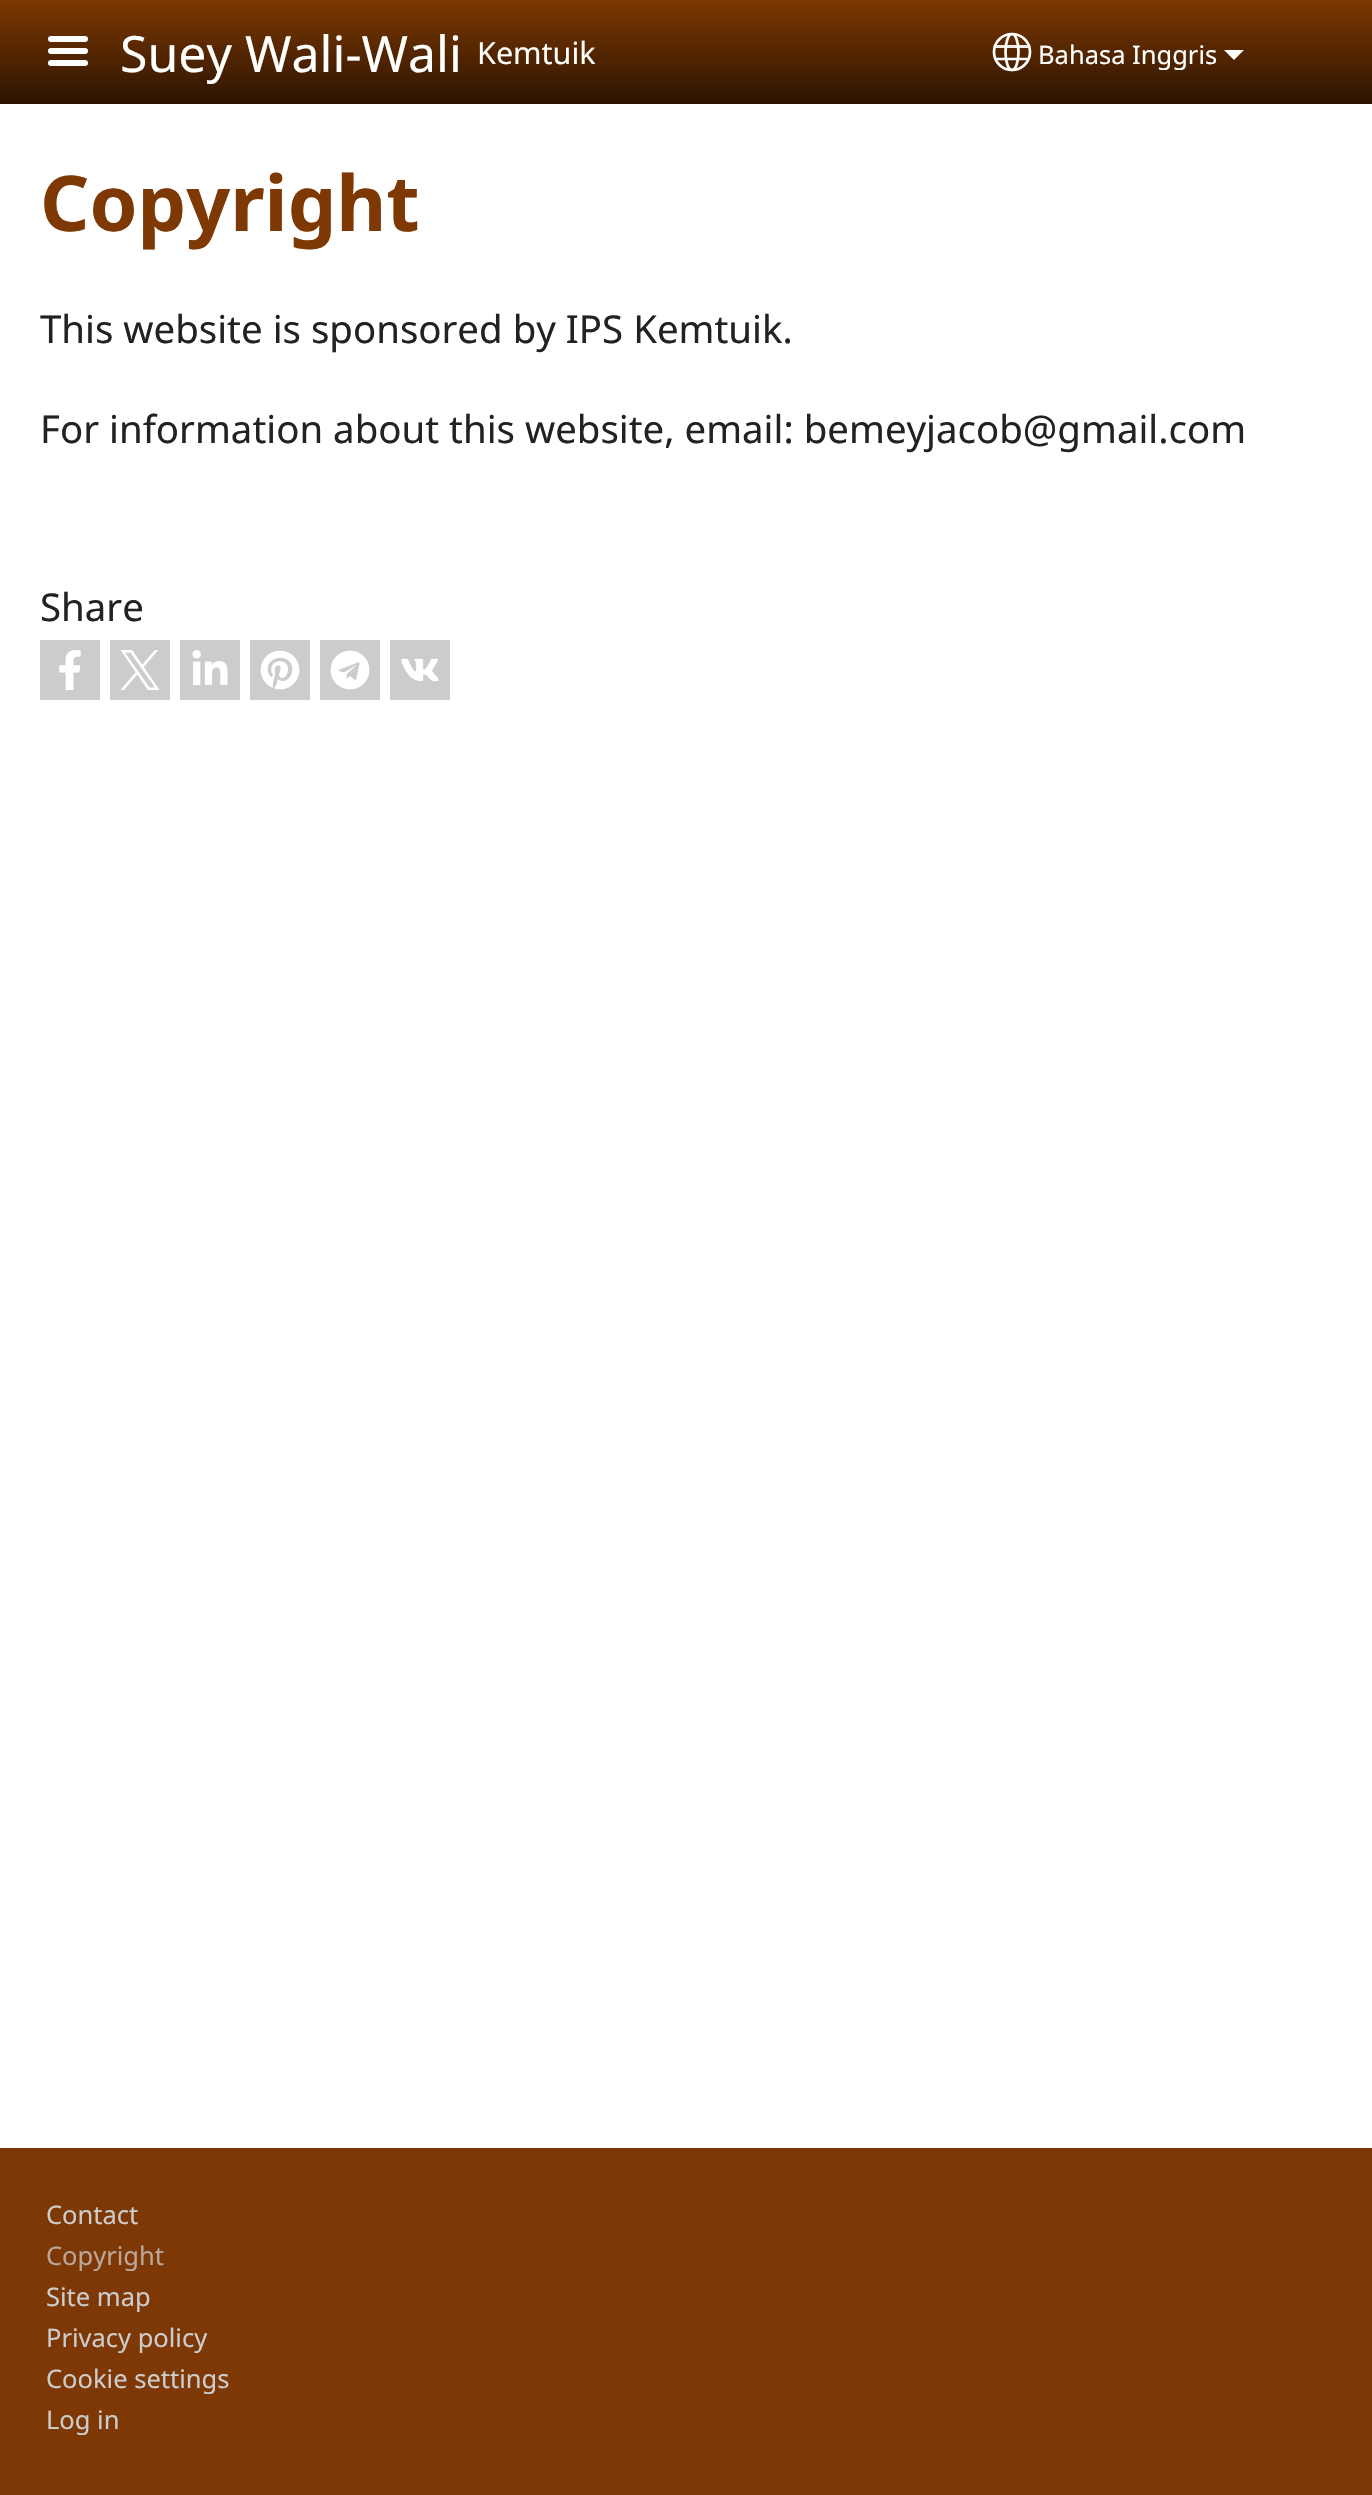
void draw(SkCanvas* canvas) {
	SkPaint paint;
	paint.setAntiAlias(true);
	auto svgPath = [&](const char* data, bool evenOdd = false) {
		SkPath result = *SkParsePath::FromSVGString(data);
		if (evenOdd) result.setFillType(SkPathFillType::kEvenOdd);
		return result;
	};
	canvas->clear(0xffffffff);
	{
		const SkColor colors[] = {0xff7d3801, 0xff2c1401};
		const float stops[] = {0, 1};
		const SkPoint ends[] = {{686, 0}, {686, 104}};
		paint.setShader(SkGradientShader::MakeLinear(ends, colors, stops, 2, SkTileMode::kClamp));
		paint.setAlpha(255);
	}
	canvas->drawRect(SkRect::MakeXYWH(0, 0, 1372, 104), paint);
	paint.setShader(nullptr);
	paint.setColor(0xfffffffe);
	canvas->drawRoundRect(SkRect::MakeXYWH(48, 36, 40, 6), 3, 3, paint);
	canvas->drawRoundRect(SkRect::MakeXYWH(48, 48, 40, 6), 3, 3, paint);
	canvas->drawRoundRect(SkRect::MakeXYWH(48, 60, 40, 6), 3, 3, paint);
	SkFont f1(fontMgr->matchFamilyStyle("Noto Sans", SkFontStyle::Normal()), 50);
	f1.setSubpixel(true);
	canvas->drawString("Suey Wali-Wali", 120, 72, f1, paint);
	SkFont f2(fontMgr->matchFamilyStyle("Noto Sans", SkFontStyle::Normal()), 30.5);
	f2.setSubpixel(true);
	canvas->drawString("Kemtuik", 477, 64, f2, paint);
	paint.setStroke(true);
	paint.setStrokeWidth(2.7);
	canvas->drawCircle(1012, 52, 18, paint);
	canvas->drawOval(SkRect::MakeXYWH(1005.5, 34, 13, 36), paint);
	paint.setStroke(false);
	paint.setColor(0xe6fffffe);
	canvas->drawRect(SkRect::MakeXYWH(995, 45, 34, 3), paint);
	paint.setStroke(true);
	paint.setColor(0xfffffffe);
	canvas->drawPath(svgPath("M994.5 59H1029"), paint);
	SkFont f3(fontMgr->matchFamilyStyle("Noto Sans", SkFontStyle::Normal()), 25.5);
	f3.setSubpixel(true);
	paint.setStroke(false);
	canvas->drawString("Bahasa Inggris", 1038, 64, f3, paint);
	canvas->drawPath(svgPath("M1224 50H1244L1234 60Z"), paint);
	SkFont f4(fontMgr->matchFamilyStyle("Noto Sans", SkFontStyle::Bold()), 77);
	f4.setSubpixel(true);
	paint.setColor(0xff7d3803);
	canvas->drawString("Copyright", 40, 231, f4, paint);
	SkFont f5(fontMgr->matchFamilyStyle("Noto Sans", SkFontStyle::Normal()), 38.4);
	f5.setSubpixel(true);
	paint.setColor(0xff222222);
	canvas->drawString("This website is sponsored by IPS Kemtuik.", 40, 343, f5, paint);
	canvas->drawString("For information about this website, email: bemeyjacob@gmail.com", 40, 443, f5, paint);
	canvas->drawString("Share", 40, 621, f5, paint);
	paint.setColor(0xffcccccc);
	canvas->drawRect(SkRect::MakeXYWH(40, 640, 60, 60), paint);
	canvas->drawImageRect(SkImages::DeferredFromEncodedData(SkData::MakeFromFileName("img1.png")), SkRect::MakeXYWH(59, 650, 22, 40), SkSamplingOptions());
	canvas->drawRect(SkRect::MakeXYWH(110, 640, 60, 60), paint);
	canvas->drawImageRect(SkImages::DeferredFromEncodedData(SkData::MakeFromFileName("img2.png")), SkRect::MakeXYWH(120, 650, 40, 40), SkSamplingOptions());
	canvas->drawRect(SkRect::MakeXYWH(180, 640, 60, 60), paint);
	canvas->drawImageRect(SkImages::DeferredFromEncodedData(SkData::MakeFromFileName("img3.png")), SkRect::MakeXYWH(192, 650, 36, 35), SkSamplingOptions());
	canvas->drawRect(SkRect::MakeXYWH(250, 640, 60, 60), paint);
	canvas->drawImageRect(SkImages::DeferredFromEncodedData(SkData::MakeFromFileName("img4.png")), SkRect::MakeXYWH(260, 650, 40, 40), SkSamplingOptions());
	canvas->drawRect(SkRect::MakeXYWH(320, 640, 60, 60), paint);
	canvas->drawImageRect(SkImages::DeferredFromEncodedData(SkData::MakeFromFileName("img5.png")), SkRect::MakeXYWH(330, 650, 40, 40), SkSamplingOptions());
	canvas->drawRect(SkRect::MakeXYWH(390, 640, 60, 60), paint);
	canvas->drawImageRect(SkImages::DeferredFromEncodedData(SkData::MakeFromFileName("img6.png")), SkRect::MakeXYWH(401, 658, 38, 24), SkSamplingOptions());
	paint.setColor(0xff7d3805);
	canvas->drawRect(SkRect::MakeXYWH(0, 2148, 1372, 347), paint);
	paint.setColor(0xffcccccc);
	canvas->drawString("Contact", 46, 2224, f3, paint);
	paint.setColor(0xffb8a79a);
	canvas->drawString("Copyright", 46, 2265, f3, paint);
	paint.setColor(0xffcccccc);
	canvas->drawString("Site map", 46, 2306, f3, paint);
	canvas->drawString("Privacy policy", 46, 2347, f3, paint);
	canvas->drawString("Cookie settings", 46, 2388, f3, paint);
	canvas->drawString("Log in", 46, 2429, f3, paint);
}
